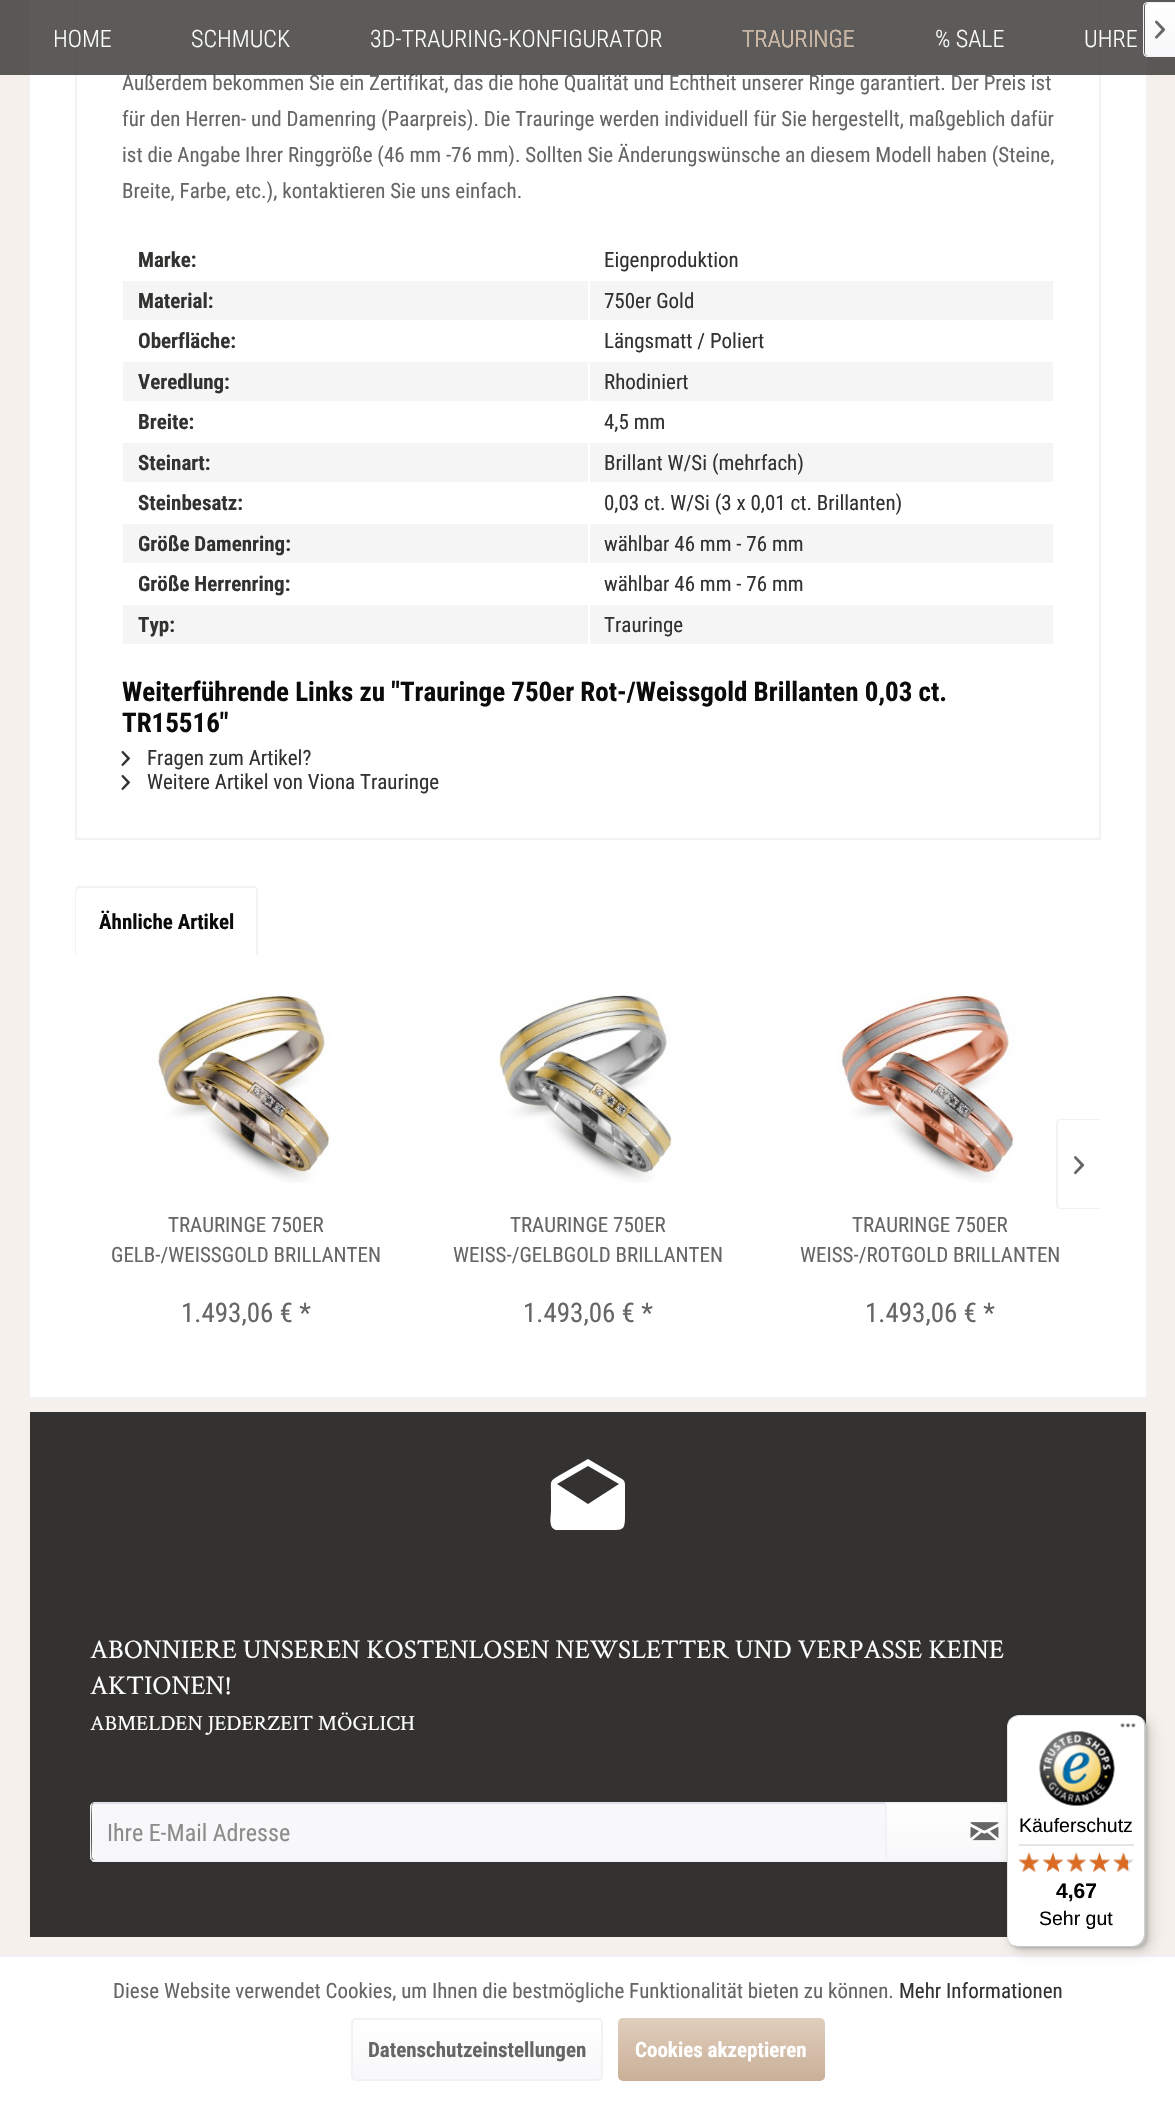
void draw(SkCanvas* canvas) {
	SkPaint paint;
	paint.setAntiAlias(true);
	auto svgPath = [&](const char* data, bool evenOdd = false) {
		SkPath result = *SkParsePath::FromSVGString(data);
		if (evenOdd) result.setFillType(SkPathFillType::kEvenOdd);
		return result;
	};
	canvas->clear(0xfff5f0eb);
	paint.setColor(0xfff2f2f6);
	paint.setMaskFilter(SkMaskFilter::MakeBlur(kNormal_SkBlurStyle, 3));
	canvas->drawRect(SkRect::MakeXYWH(29, -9, 1119, 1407), paint);
	paint.setMaskFilter(nullptr);
	paint.setColor(0xffffffff);
	canvas->drawRect(SkRect::MakeXYWH(30, 0, 1116, 1397), paint);
	paint.setStroke(true);
	paint.setStrokeWidth(2);
	paint.setColor(0xfff2f2f6);
	canvas->drawRect(SkRect::MakeXYWH(76, -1, 1024, 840), paint);
	SkFont f1(fontMgr->matchFamilyStyle("Roboto Condensed", SkFontStyle::Normal()), 21);
	f1.setSubpixel(true);
	paint.setStroke(false);
	paint.setColor(0xff666666);
	canvas->drawString("Außerdem bekommen Sie ein Zertifikat, das die hohe Qualität und Echtheit unserer Ringe garantiert. Der Preis ist", 122, 90, f1, paint);
	paint.setColor(0xcc333230);
	canvas->drawRect(SkRect::MakeXYWH(0, 0, 1175, 75), paint);
	SkFont f2(fontMgr->matchFamilyStyle("Roboto Condensed", SkFontStyle(300, SkFontStyle::kNormal_Width, SkFontStyle::kUpright_Slant)), 24);
	f2.setSubpixel(true);
	paint.setColor(0xffffffff);
	canvas->drawString("HOME", 53, 47, f2, paint);
	canvas->drawString("SCHMUCK", 191, 47, f2, paint);
	canvas->drawString("3D-TRAURING-KONFIGURATOR", 370, 47, f2, paint);
	canvas->drawString("TRAURINGE", 742, 47, f2, paint);
	paint.setColor(0xffc9af97);
	canvas->drawString("TRAURINGE", 742, 47, f2, paint);
	paint.setColor(0xffffffff);
	canvas->drawString("% SALE", 935, 47, f2, paint);
	canvas->drawString("UHRE", 1084, 47, f2, paint);
	{
		const SkColor colors[] = {0xffffffff, 0xfff8f8fa};
		const float stops[] = {0, 1};
		const SkPoint ends[] = {{1160, 3}, {1160, 56}};
		paint.setShader(SkGradientShader::MakeLinear(ends, colors, stops, 2, SkTileMode::kClamp));
		paint.setAlpha(255);
	}
	canvas->drawPath(svgPath("M1148 3H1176V56H1148C1146.5 56 1145 54.5 1145 53V6C1145 4.5 1146.5 3 1148 3Z"), paint);
	paint.setShader(nullptr);
	paint.setColor(0xfff2f2f6);
	canvas->drawPath(svgPath("M1148 2H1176V57H1148C1145 57 1143 55 1143 52V6C1143 4 1145 2 1148 2ZM1148 3H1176V56H1148C1146 56 1144 54 1144 52V6C1144 4 1146 3 1148 3Z", true), paint);
	canvas->drawImageRect(SkImages::DeferredFromEncodedData(SkData::MakeFromFileName("img1.png")), SkRect::MakeXYWH(1155, 20, 11, 19), SkSamplingOptions());
	paint.setColor(0xff666666);
	canvas->drawString("für den Herren- und Damenring (Paarpreis). Die Trauringe werden individuell für Sie hergestellt, maßgeblich dafür", 122, 126, f1, paint);
	canvas->drawString("ist die Angabe Ihrer Ringgröße (46 mm -76 mm). Sollten Sie Änderungswünsche an diesem Modell haben (Steine,", 122, 162, f1, paint);
	canvas->drawString("Breite, Farbe, etc.), kontaktieren Sie uns einfach.", 122, 198, f1, paint);
	SkFont f3(fontMgr->matchFamilyStyle("Roboto Condensed", SkFontStyle::Bold()), 21);
	f3.setSubpixel(true);
	paint.setColor(0xff333230);
	canvas->drawString("Marke:", 138, 267, f3, paint);
	canvas->drawString("Eigenproduktion", 604, 267, f1, paint);
	paint.setColor(0xfff5f5f5);
	canvas->drawRect(SkRect::MakeXYWH(123, 281, 465, 39), paint);
	paint.setColor(0xff333230);
	canvas->drawString("Material:", 138, 308, f3, paint);
	paint.setColor(0xfff5f5f5);
	canvas->drawRect(SkRect::MakeXYWH(590, 281, 463, 39), paint);
	paint.setColor(0xff333230);
	canvas->drawString("750er Gold", 604, 308, f1, paint);
	canvas->drawString("Oberfläche:", 138, 348, f3, paint);
	canvas->drawString("Längsmatt / Poliert", 604, 348, f1, paint);
	paint.setColor(0xfff5f5f5);
	canvas->drawRect(SkRect::MakeXYWH(123, 362, 465, 39), paint);
	paint.setColor(0xff333230);
	canvas->drawString("Veredlung:", 138, 389, f3, paint);
	paint.setColor(0xfff5f5f5);
	canvas->drawRect(SkRect::MakeXYWH(590, 362, 463, 39), paint);
	paint.setColor(0xff333230);
	canvas->drawString("Rhodiniert", 604, 389, f1, paint);
	canvas->drawString("Breite:", 138, 429, f3, paint);
	canvas->drawString("4,5 mm", 604, 429, f1, paint);
	paint.setColor(0xfff5f5f5);
	canvas->drawRect(SkRect::MakeXYWH(123, 443, 465, 39), paint);
	paint.setColor(0xff333230);
	canvas->drawString("Steinart:", 138, 470, f3, paint);
	paint.setColor(0xfff5f5f5);
	canvas->drawRect(SkRect::MakeXYWH(590, 443, 463, 39), paint);
	paint.setColor(0xff333230);
	canvas->drawString("Brillant W/Si (mehrfach)", 604, 470, f1, paint);
	canvas->drawString("Steinbesatz:", 138, 510, f3, paint);
	canvas->drawString("0,03 ct. W/Si (3 x 0,01 ct. Brillanten)", 604, 510, f1, paint);
	paint.setColor(0xfff5f5f5);
	canvas->drawRect(SkRect::MakeXYWH(123, 524, 465, 39), paint);
	paint.setColor(0xff333230);
	canvas->drawString("Größe Damenring:", 138, 551, f3, paint);
	paint.setColor(0xfff5f5f5);
	canvas->drawRect(SkRect::MakeXYWH(590, 524, 463, 39), paint);
	paint.setColor(0xff333230);
	canvas->drawString("wählbar 46 mm - 76 mm", 604, 551, f1, paint);
	canvas->drawString("Größe Herrenring:", 138, 591, f3, paint);
	canvas->drawString("wählbar 46 mm - 76 mm", 604, 591, f1, paint);
	paint.setColor(0xfff5f5f5);
	canvas->drawRect(SkRect::MakeXYWH(123, 605, 465, 39), paint);
	paint.setColor(0xff333230);
	canvas->drawString("Typ:", 138, 632, f3, paint);
	paint.setColor(0xfff5f5f5);
	canvas->drawRect(SkRect::MakeXYWH(590, 605, 463, 39), paint);
	paint.setColor(0xff333230);
	canvas->drawString("Trauringe", 604, 632, f1, paint);
	SkFont f4(fontMgr->matchFamilyStyle("Roboto Condensed", SkFontStyle::Bold()), 27);
	f4.setSubpixel(true);
	paint.setColor(0xff0c0b0b);
	canvas->drawString("Weiterführende Links zu \"Trauringe 750er Rot-/Weissgold Brillanten 0,03 ct.", 122, 701, f4, paint);
	canvas->drawString("TR15516\"", 122, 732, f4, paint);
	canvas->drawImageRect(SkImages::DeferredFromEncodedData(SkData::MakeFromFileName("img2.png")), SkRect::MakeXYWH(121, 751, 9, 15), SkSamplingOptions());
	paint.setColor(0xff333230);
	canvas->drawString("Fragen zum Artikel?", 147, 765, f1, paint);
	canvas->drawImageRect(SkImages::DeferredFromEncodedData(SkData::MakeFromFileName("img2.png")), SkRect::MakeXYWH(121, 775, 9, 15), SkSamplingOptions());
	canvas->drawString("Weitere Artikel von Viona Trauringe", 147, 789, f1, paint);
	paint.setColor(0xfff2f2f6);
	canvas->drawPath(svgPath("M80 888L77 889L76 888L78 886H255L257 888L256 889L254 888Z"), paint);
	canvas->drawPath(svgPath("M258 956V891C258 890 258 889 257 888L256 889V891V954Z"), paint);
	paint.setColor(0xffffffff);
	canvas->drawPath(svgPath("M258 956H75L76 954H256Z"), paint);
	paint.setColor(0xfff2f2f6);
	canvas->drawPath(svgPath("M75 956L76 954V891L77 889L76 888L75 891Z"), paint);
	paint.setColor(0xff0c0b0b);
	canvas->drawString("Ähnliche Artikel", 99, 929, f3, paint);
	paint.setColor(0xfff2f2f6);
	canvas->drawPath(svgPath("M1060 1119H1101V1209H1060C1058 1209 1056 1207 1056 1204V1124C1056 1121 1058 1119 1060 1119ZM1060 1120H1101V1208H1060C1059 1208 1058 1206 1058 1204V1124C1058 1122 1059 1120 1060 1120Z", true), paint);
	canvas->drawImageRect(SkImages::DeferredFromEncodedData(SkData::MakeFromFileName("img3.png")), SkRect::MakeXYWH(1074, 1156, 11, 19), SkSamplingOptions());
	canvas->drawImageRect(SkImages::DeferredFromEncodedData(SkData::MakeFromFileName("img4.png")), SkRect::MakeXYWH(152, 995, 179, 188), SkSamplingOptions());
	paint.setColor(0xff666666);
	canvas->drawString("TRAURINGE 750ER", 168, 1232, f1, paint);
	canvas->drawString("GELB-/WEISSGOLD BRILLANTEN", 111, 1262, f1, paint);
	SkFont f5(fontMgr->matchFamilyStyle("Roboto Condensed", SkFontStyle::Normal()), 27);
	f5.setSubpixel(true);
	canvas->drawString("1.493,06 € *", 181, 1322, f5, paint);
	canvas->drawImageRect(SkImages::DeferredFromEncodedData(SkData::MakeFromFileName("img5.png")), SkRect::MakeXYWH(494, 995, 179, 188), SkSamplingOptions());
	canvas->drawString("TRAURINGE 750ER", 510, 1232, f1, paint);
	canvas->drawString("WEISS-/GELBGOLD BRILLANTEN", 453, 1262, f1, paint);
	canvas->drawString("1.493,06 € *", 523, 1322, f5, paint);
	canvas->drawImageRect(SkImages::DeferredFromEncodedData(SkData::MakeFromFileName("img6.png")), SkRect::MakeXYWH(836, 995, 179, 188), SkSamplingOptions());
	canvas->drawString("TRAURINGE 750ER", 852, 1232, f1, paint);
	canvas->drawString("WEISS-/ROTGOLD BRILLANTEN", 800, 1262, f1, paint);
	canvas->drawString("1.493,06 € *", 865, 1322, f5, paint);
	paint.setColor(0xff333230);
	canvas->drawRect(SkRect::MakeXYWH(30, 1412, 1116, 525), paint);
	paint.setColor(0xffffffff);
	canvas->drawPath(svgPath("M588 1504L619 1484L588 1466L557 1484ZM625 1485V1516C625 1531 623 1530 608 1530H556C548 1528 551 1516 551 1510V1491C551 1480 550 1481 560 1475L588 1459L622 1479C624 1480 625 1482 625 1485Z"), paint);
	SkFont f6(fontMgr->matchFamilyStyle("Crimson Text", SkFontStyle::Normal()), 27);
	f6.setSubpixel(true);
	canvas->drawString("ABONNIERE UNSEREN KOSTENLOSEN NEWSLETTER UND VERPASSE KEINE", 90, 1658, f6, paint);
	canvas->drawString("AKTIONEN!", 90, 1694, f6, paint);
	SkFont f7(fontMgr->matchFamilyStyle("Crimson Text", SkFontStyle::Normal()), 21.6);
	f7.setSubpixel(true);
	canvas->drawString("ABMELDEN JEDERZEIT MÖGLICH", 90, 1730, f7, paint);
	paint.setColor(0xfff8f8fa);
	canvas->drawPath(svgPath("M95 1803H885V1860H95C93.5 1860 92 1858.5 92 1857V1806C92 1804.5 93.5 1803 95 1803Z"), paint);
	paint.setColor(0xffdadae5);
	canvas->drawPath(svgPath("M94 1804H885V1803H95C92 1803 92 1806 92 1808C92 1806 93 1804 94 1804Z"), paint);
	paint.setColor(0xffe3e3eb);
	canvas->drawPath(svgPath("M94 1802L92 1803V1804L94 1803H885L886 1802Z"), paint);
	paint.setColor(0xfff2f2f6);
	canvas->drawPath(svgPath("M93 1862L91 1860L92 1859L94 1860H885L886 1861V1862Z"), paint);
	canvas->drawPath(svgPath("M90 1806V1857C90 1858 90 1859 91 1860L92 1859C91 1857 91 1806 92 1804V1803C91 1804 90 1805 90 1806Z"), paint);
	SkFont f8(fontMgr->matchFamilyStyle("Roboto Condensed", SkFontStyle::Normal()), 24);
	f8.setSubpixel(true);
	paint.setColor(0xff8c8c8c);
	canvas->drawString("Ihre E-Mail Adresse", 107, 1841, f8, paint);
	{
		const SkColor colors[] = {0xffffffff, 0xfff8f8fa};
		const float stops[] = {0, 1};
		const SkPoint ends[] = {{985, 1803}, {985, 1860}};
		paint.setShader(SkGradientShader::MakeLinear(ends, colors, stops, 2, SkTileMode::kClamp));
		paint.setAlpha(255);
	}
	canvas->drawRect(SkRect::MakeXYWH(887, 1804, 120, 56), paint);
	paint.setStroke(true);
	paint.setShader(nullptr);
	paint.setColor(0xfff2f2f6);
	canvas->drawRect(SkRect::MakeXYWH(886, 1803, 198, 58), paint);
	canvas->drawImageRect(SkImages::DeferredFromEncodedData(SkData::MakeFromFileName("img7.png")), SkRect::MakeXYWH(970, 1822, 29, 19), SkSamplingOptions());
	paint.setStroke(false);
	paint.setColor(0xffffffff);
	canvas->drawRect(SkRect::MakeXYWH(0, 1957, 1175, 145), paint);
	paint.setColor(0xfff2f2f6);
	canvas->drawRect(SkRect::MakeXYWH(0, 1955, 1175, 2), paint);
	paint.setColor(0x26000000);
	paint.setMaskFilter(SkMaskFilter::MakeBlur(kNormal_SkBlurStyle, 6));
	canvas->drawRoundRect(SkRect::MakeXYWH(1011, 1719, 140, 233), 12, 12, paint);
	paint.setMaskFilter(nullptr);
	paint.setMaskFilter(SkMaskFilter::MakeBlur(kNormal_SkBlurStyle, 1.5));
	canvas->drawRoundRect(SkRect::MakeXYWH(1008, 1716, 140, 233), 12, 12, paint);
	paint.setMaskFilter(nullptr);
	paint.setColor(0xffffffff);
	canvas->drawRoundRect(SkRect::MakeXYWH(1007, 1715, 139, 232), 12, 12, paint);
	paint.setColor(0x1a000000);
	canvas->drawPath(svgPath("M1020 1716H1136L1141 1717C1139 1716 1136 1715 1134 1715H1019C1012 1715 1007 1720 1007 1727V1935C1007 1938 1008 1941 1010 1943C1009 1941 1008 1939 1008 1936V1728C1008 1721 1013 1716 1020 1716Z"), paint);
	paint.setColor(0x33000000);
	canvas->drawPath(svgPath("M1013 1945C1014 1946 1017 1947 1019 1947H1134C1141 1947 1146 1942 1146 1935V1727C1146 1723 1144 1720 1142 1718C1143 1720 1144 1722 1144 1725V1934C1144 1940 1139 1946 1132 1946H1017Z"), paint);
	paint.setColor(0x33323232);
	canvas->drawPath(svgPath("M1011 1944C1013 1946 1016 1947 1019 1947H1134C1141 1947 1146 1942 1146 1935V1727C1146 1724 1145 1721 1143 1719C1144 1721 1145 1723 1145 1726V1934C1145 1941 1140 1946 1133 1946H1018C1015 1946 1013 1945 1011 1944Z"), paint);
	paint.setColor(0x4dffffff);
	canvas->drawPath(svgPath("M1011 1944C1013 1946 1016 1947 1019 1947H1134C1141 1947 1146 1942 1146 1935V1727C1146 1724 1145 1721 1143 1719C1144 1721 1145 1723 1145 1726V1934C1145 1941 1140 1946 1133 1946H1018C1015 1946 1013 1945 1011 1944Z"), paint);
	canvas->drawImageRect(SkImages::DeferredFromEncodedData(SkData::MakeFromFileName("img8.png")), SkRect::MakeXYWH(1120, 1723, 16, 5), SkSamplingOptions());
	canvas->drawImageRect(SkImages::DeferredFromEncodedData(SkData::MakeFromFileName("img9.png")), SkRect::MakeXYWH(1039, 1731, 76, 75), SkSamplingOptions());
	SkFont f9(fontMgr->matchFamilyStyle("Liberation Sans", SkFontStyle::Normal()), 19.5);
	f9.setSubpixel(true);
	paint.setColor(0xff000000);
	canvas->drawString("Käuferschutz", 1019, 1832, f9, paint);
	paint.setColor(0xffe5e5e5);
	canvas->drawRect(SkRect::MakeXYWH(1019, 1844, 115, 2), paint);
	canvas->drawImageRect(SkImages::DeferredFromEncodedData(SkData::MakeFromFileName("img15.png")), SkRect::MakeXYWH(1019, 1853, 20, 19), SkSamplingOptions());
	canvas->drawImageRect(SkImages::DeferredFromEncodedData(SkData::MakeFromFileName("img10.png")), SkRect::MakeXYWH(1018, 1852, 22, 20), SkSamplingOptions());
	canvas->drawImageRect(SkImages::DeferredFromEncodedData(SkData::MakeFromFileName("img16.png")), SkRect::MakeXYWH(1043, 1852, 20, 20), SkSamplingOptions());
	canvas->drawImageRect(SkImages::DeferredFromEncodedData(SkData::MakeFromFileName("img11.png")), SkRect::MakeXYWH(1043, 1852, 20, 20), SkSamplingOptions());
	canvas->drawImageRect(SkImages::DeferredFromEncodedData(SkData::MakeFromFileName("img17.png")), SkRect::MakeXYWH(1066, 1852, 20, 20), SkSamplingOptions());
	canvas->drawImageRect(SkImages::DeferredFromEncodedData(SkData::MakeFromFileName("img12.png")), SkRect::MakeXYWH(1066, 1852, 20, 20), SkSamplingOptions());
	canvas->drawImageRect(SkImages::DeferredFromEncodedData(SkData::MakeFromFileName("img18.png")), SkRect::MakeXYWH(1089, 1852, 21, 20), SkSamplingOptions());
	canvas->drawImageRect(SkImages::DeferredFromEncodedData(SkData::MakeFromFileName("img13.png")), SkRect::MakeXYWH(1089, 1852, 21, 20), SkSamplingOptions());
	canvas->drawImageRect(SkImages::DeferredFromEncodedData(SkData::MakeFromFileName("img19.png")), SkRect::MakeXYWH(1113, 1853, 21, 19), SkSamplingOptions());
	canvas->drawImageRect(SkImages::DeferredFromEncodedData(SkData::MakeFromFileName("img14.png")), SkRect::MakeXYWH(1113, 1852, 15, 20), SkSamplingOptions());
	SkFont f10(fontMgr->matchFamilyStyle("Liberation Sans", SkFontStyle::Bold()), 21);
	f10.setSubpixel(true);
	paint.setColor(0xff000000);
	canvas->drawString("4,67", 1056, 1898, f10, paint);
	canvas->drawString("Sehr gut", 1039, 1925, f9, paint);
	paint.setColor(0xff666666);
	canvas->drawString("Diese Website verwendet Cookies, um Ihnen die bestmögliche Funktionalität bieten zu können.", 113, 1998, f1, paint);
	paint.setColor(0xff333230);
	canvas->drawString("Mehr Informationen", 899, 1998, f1, paint);
	{
		const SkColor colors[] = {0xffffffff, 0xfff8f8fa};
		const float stops[] = {0, 1};
		const SkPoint ends[] = {{477, 2019}, {477, 2079}};
		paint.setShader(SkGradientShader::MakeLinear(ends, colors, stops, 2, SkTileMode::kClamp));
		paint.setAlpha(255);
	}
	canvas->drawRoundRect(SkRect::MakeXYWH(353, 2019, 249, 60), 3, 3, paint);
	paint.setStroke(true);
	paint.setShader(nullptr);
	paint.setColor(0xfff2f2f6);
	canvas->drawRoundRect(SkRect::MakeXYWH(352, 2019, 250, 61), 4, 4, paint);
	paint.setStroke(false);
	paint.setColor(0xff666666);
	canvas->drawString("Datenschutzeinstellungen", 368, 2057, f3, paint);
	{
		const SkColor colors[] = {0xffe0cebd, 0xffc9af97};
		const float stops[] = {0, 1};
		const SkPoint ends[] = {{722, 2018}, {722, 2081}};
		paint.setShader(SkGradientShader::MakeLinear(ends, colors, stops, 2, SkTileMode::kClamp));
		paint.setAlpha(255);
	}
	canvas->drawRoundRect(SkRect::MakeXYWH(618, 2018, 207, 63), 5, 5, paint);
	paint.setShader(nullptr);
	paint.setColor(0xffffffff);
	canvas->drawString("Cookies akzeptieren", 635, 2057, f3, paint);
}
